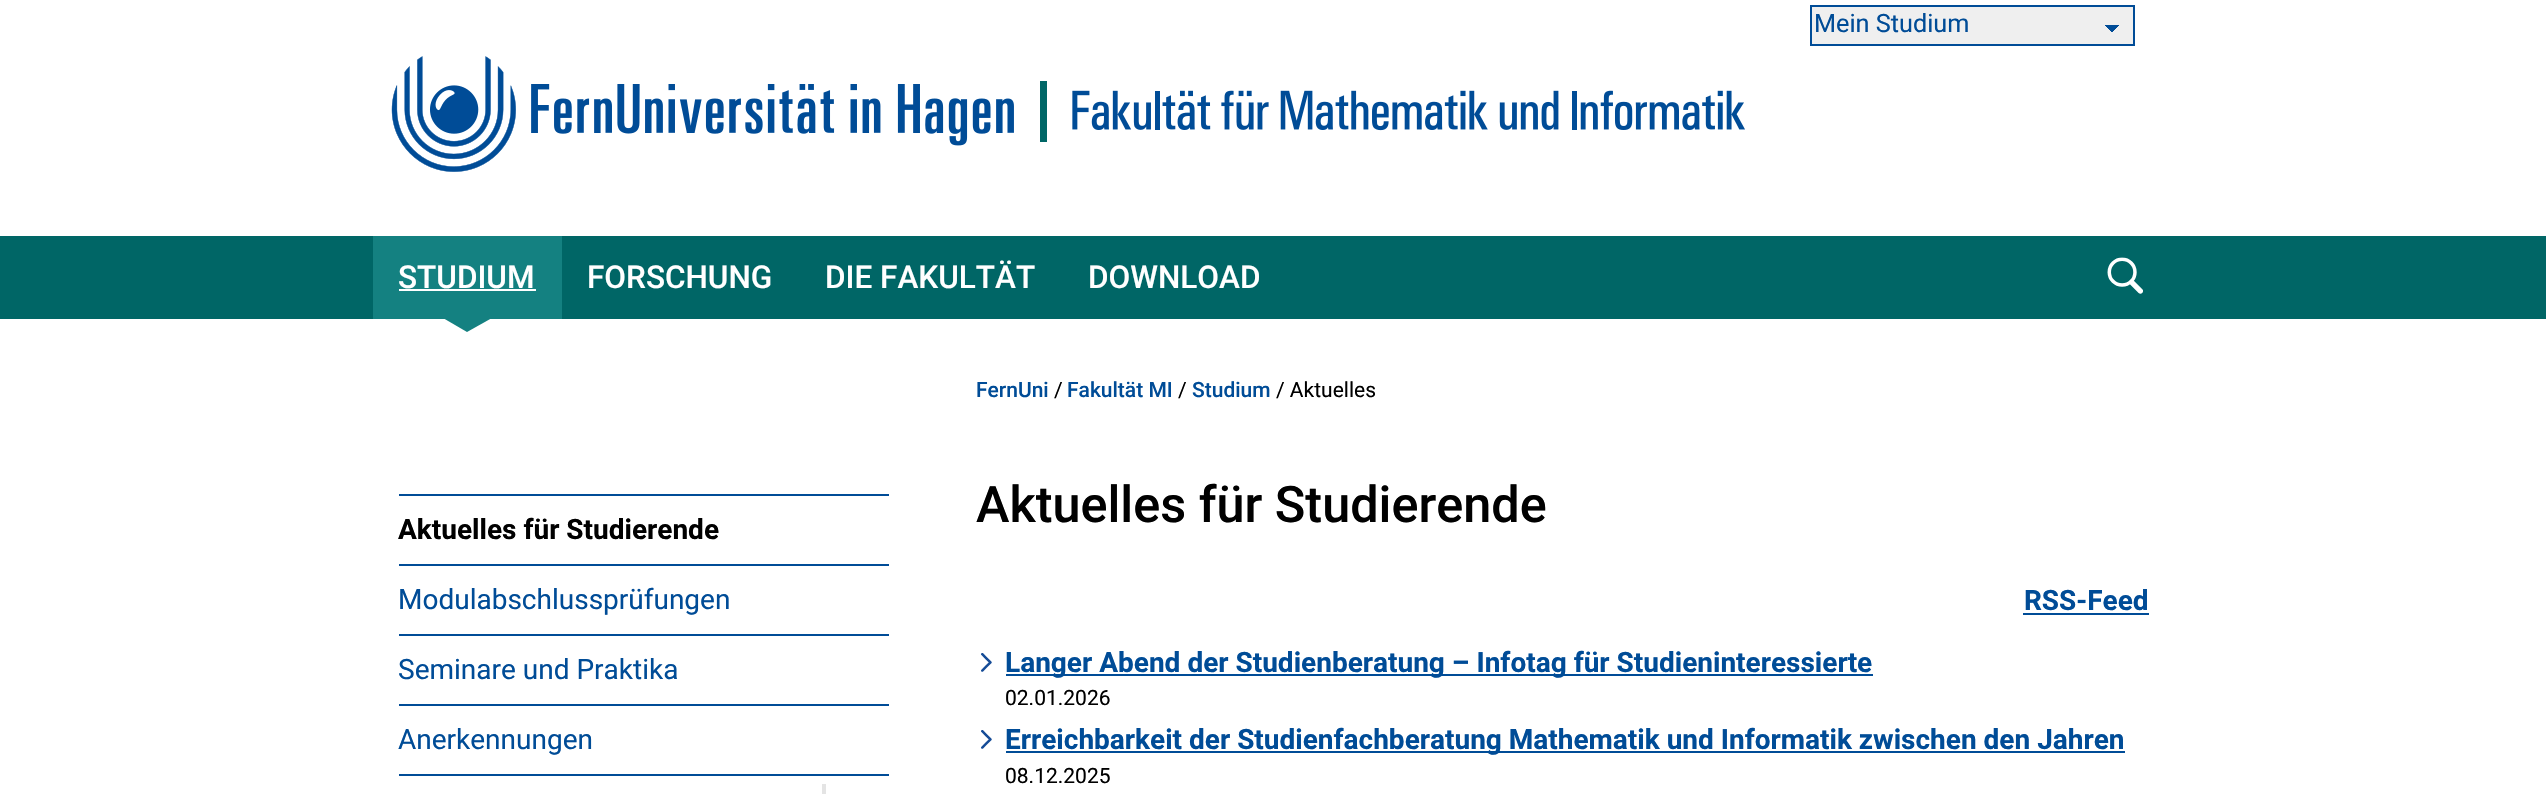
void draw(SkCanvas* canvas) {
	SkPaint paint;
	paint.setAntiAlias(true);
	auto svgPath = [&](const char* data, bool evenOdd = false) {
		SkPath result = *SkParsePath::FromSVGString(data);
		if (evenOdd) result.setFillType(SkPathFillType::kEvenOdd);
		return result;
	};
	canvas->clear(0xffffffff);
	paint.setColor(0xff006666);
	canvas->drawRect(SkRect::MakeXYWH(0, 236, 2546, 83), paint);
	paint.setColor(0xffefefef);
	canvas->drawRect(SkRect::MakeXYWH(1812, 7, 321, 37), paint);
	{
		const SkColor colors[] = {0xff004c97, 0xffefefef};
		const float stops[] = {0.5, 0.5};
		const SkPoint ends[] = {{2111, 25}, {2119, 33}};
		paint.setShader(SkGradientShader::MakeLinear(ends, colors, stops, 2, SkTileMode::kClamp));
		paint.setAlpha(255);
	}
	canvas->drawRect(SkRect::MakeXYWH(2111, 25, 8, 7), paint);
	{
		const SkColor colors[] = {0x00004c97, 0xff004c97};
		const float stops[] = {0.5, 0.5};
		const SkPoint ends[] = {{2104, 33}, {2112, 25}};
		paint.setShader(SkGradientShader::MakeLinear(ends, colors, stops, 2, SkTileMode::kClamp));
		paint.setAlpha(255);
	}
	canvas->drawRect(SkRect::MakeXYWH(2104, 25, 8, 8), paint);
	paint.setStroke(true);
	paint.setStrokeWidth(2);
	paint.setShader(nullptr);
	paint.setColor(0xff004c97);
	canvas->drawRect(SkRect::MakeXYWH(1811, 6, 323, 39), paint);
	SkFont f1(fontMgr->matchFamilyStyle("Roboto", SkFontStyle::Normal()), 25.25);
	f1.setSubpixel(true);
	paint.setStroke(false);
	canvas->drawString("Mein Studium", 1814, 32, f1, paint);
	paint.setColor(0xff148181);
	canvas->drawRect(SkRect::MakeXYWH(373, 236, 189, 83), paint);
	SkFont f2(fontMgr->matchFamilyStyle("Roboto", SkFontStyle(500, SkFontStyle::kNormal_Width, SkFontStyle::kUpright_Slant)), 31.5);
	f2.setSubpixel(true);
	paint.setColor(0xffffffff);
	canvas->drawString("STUDIUM", 398, 288, f2, paint);
	canvas->drawRect(SkRect::MakeXYWH(399, 289, 137, 2), paint);
	paint.setColor(0xff148181);
	canvas->drawPath(svgPath("M443 318H492L467 332Z"), paint);
	paint.setColor(0xffffffff);
	canvas->drawString("FORSCHUNG", 587, 288, f2, paint);
	canvas->drawString("DIE FAKULTÄT", 825, 288, f2, paint);
	canvas->drawString("DOWNLOAD", 1088, 288, f2, paint);
	canvas->drawImageRect(SkImages::DeferredFromEncodedData(SkData::MakeFromFileName("img1.png")), SkRect::MakeXYWH(2107, 257, 36, 37), SkSamplingOptions());
	canvas->drawImageRect(SkImages::DeferredFromEncodedData(SkData::MakeFromFileName("img2.png")), SkRect::MakeXYWH(391, 56, 623, 116), SkSamplingOptions());
	paint.setColor(0xff006666);
	canvas->drawRect(SkRect::MakeXYWH(1040, 81, 7, 61), paint);
	canvas->drawImageRect(SkImages::DeferredFromEncodedData(SkData::MakeFromFileName("img3.png")), SkRect::MakeXYWH(1072, 90, 673, 41), SkSamplingOptions());
	paint.setColor(0xff004c97);
	canvas->drawRect(SkRect::MakeXYWH(399, 494, 490, 2), paint);
	SkFont f3(fontMgr->matchFamilyStyle("Roboto", SkFontStyle::Bold()), 28);
	f3.setSubpixel(true);
	paint.setColor(0xff000000);
	canvas->drawString("Aktuelles für Studierende", 398, 539, f3, paint);
	paint.setColor(0xff004c97);
	canvas->drawRect(SkRect::MakeXYWH(399, 564, 490, 2), paint);
	SkFont f4(fontMgr->matchFamilyStyle("Roboto", SkFontStyle::Normal()), 28);
	f4.setSubpixel(true);
	canvas->drawString("Modulabschlussprüfungen", 398, 609, f4, paint);
	canvas->drawRect(SkRect::MakeXYWH(399, 634, 490, 2), paint);
	canvas->drawString("Seminare und Praktika", 398, 679, f4, paint);
	canvas->drawRect(SkRect::MakeXYWH(399, 704, 490, 2), paint);
	canvas->drawString("Anerkennungen", 398, 749, f4, paint);
	canvas->drawRect(SkRect::MakeXYWH(399, 774, 490, 2), paint);
	paint.setColor(0xffe4e4e4);
	canvas->drawRect(SkRect::MakeXYWH(822, 784, 4, 10), paint);
	SkFont f5(fontMgr->matchFamilyStyle("Roboto", SkFontStyle(500, SkFontStyle::kNormal_Width, SkFontStyle::kUpright_Slant)), 21);
	f5.setSubpixel(true);
	paint.setColor(0xff004c97);
	canvas->drawString("FernUni", 976, 397, f5, paint);
	SkFont f6(fontMgr->matchFamilyStyle("Roboto", SkFontStyle::Normal()), 21);
	f6.setSubpixel(true);
	paint.setColor(0xff000000);
	canvas->drawString("/", 1054, 397, f6, paint);
	paint.setColor(0xff004c97);
	canvas->drawString("Fakultät MI", 1067, 397, f5, paint);
	paint.setColor(0xff000000);
	canvas->drawString("/", 1178, 397, f6, paint);
	paint.setColor(0xff004c97);
	canvas->drawString("Studium", 1192, 397, f5, paint);
	paint.setColor(0xff000000);
	canvas->drawString("/ Aktuelles", 1276, 397, f6, paint);
	SkFont f7(fontMgr->matchFamilyStyle("Roboto", SkFontStyle(500, SkFontStyle::kNormal_Width, SkFontStyle::kUpright_Slant)), 50.4);
	f7.setSubpixel(true);
	canvas->drawString("Aktuelles für Studierende", 976, 522, f7, paint);
	paint.setColor(0xff004c97);
	canvas->drawString("RSS-Feed", 2024, 610, f3, paint);
	canvas->drawRect(SkRect::MakeXYWH(2023, 613, 126, 2), paint);
	canvas->drawImageRect(SkImages::DeferredFromEncodedData(SkData::MakeFromFileName("img4.png")), SkRect::MakeXYWH(981, 653, 11, 19), SkSamplingOptions());
	canvas->drawRect(SkRect::MakeXYWH(1006, 674, 867, 2), paint);
	canvas->drawString("Langer Abend der Studienberatung – Infotag für Studieninteressierte", 1005, 672, f3, paint);
	paint.setColor(0xff000000);
	canvas->drawString("02.01.2026", 1005, 705, f6, paint);
	canvas->drawImageRect(SkImages::DeferredFromEncodedData(SkData::MakeFromFileName("img4.png")), SkRect::MakeXYWH(981, 730, 11, 19), SkSamplingOptions());
	paint.setColor(0xff004c97);
	canvas->drawRect(SkRect::MakeXYWH(1006, 751, 1119, 2), paint);
	canvas->drawString("Erreichbarkeit der Studienfachberatung Mathematik und Informatik zwischen den Jahren", 1005, 749, f3, paint);
	paint.setColor(0xff000000);
	canvas->drawString("08.12.2025", 1005, 783, f6, paint);
}
